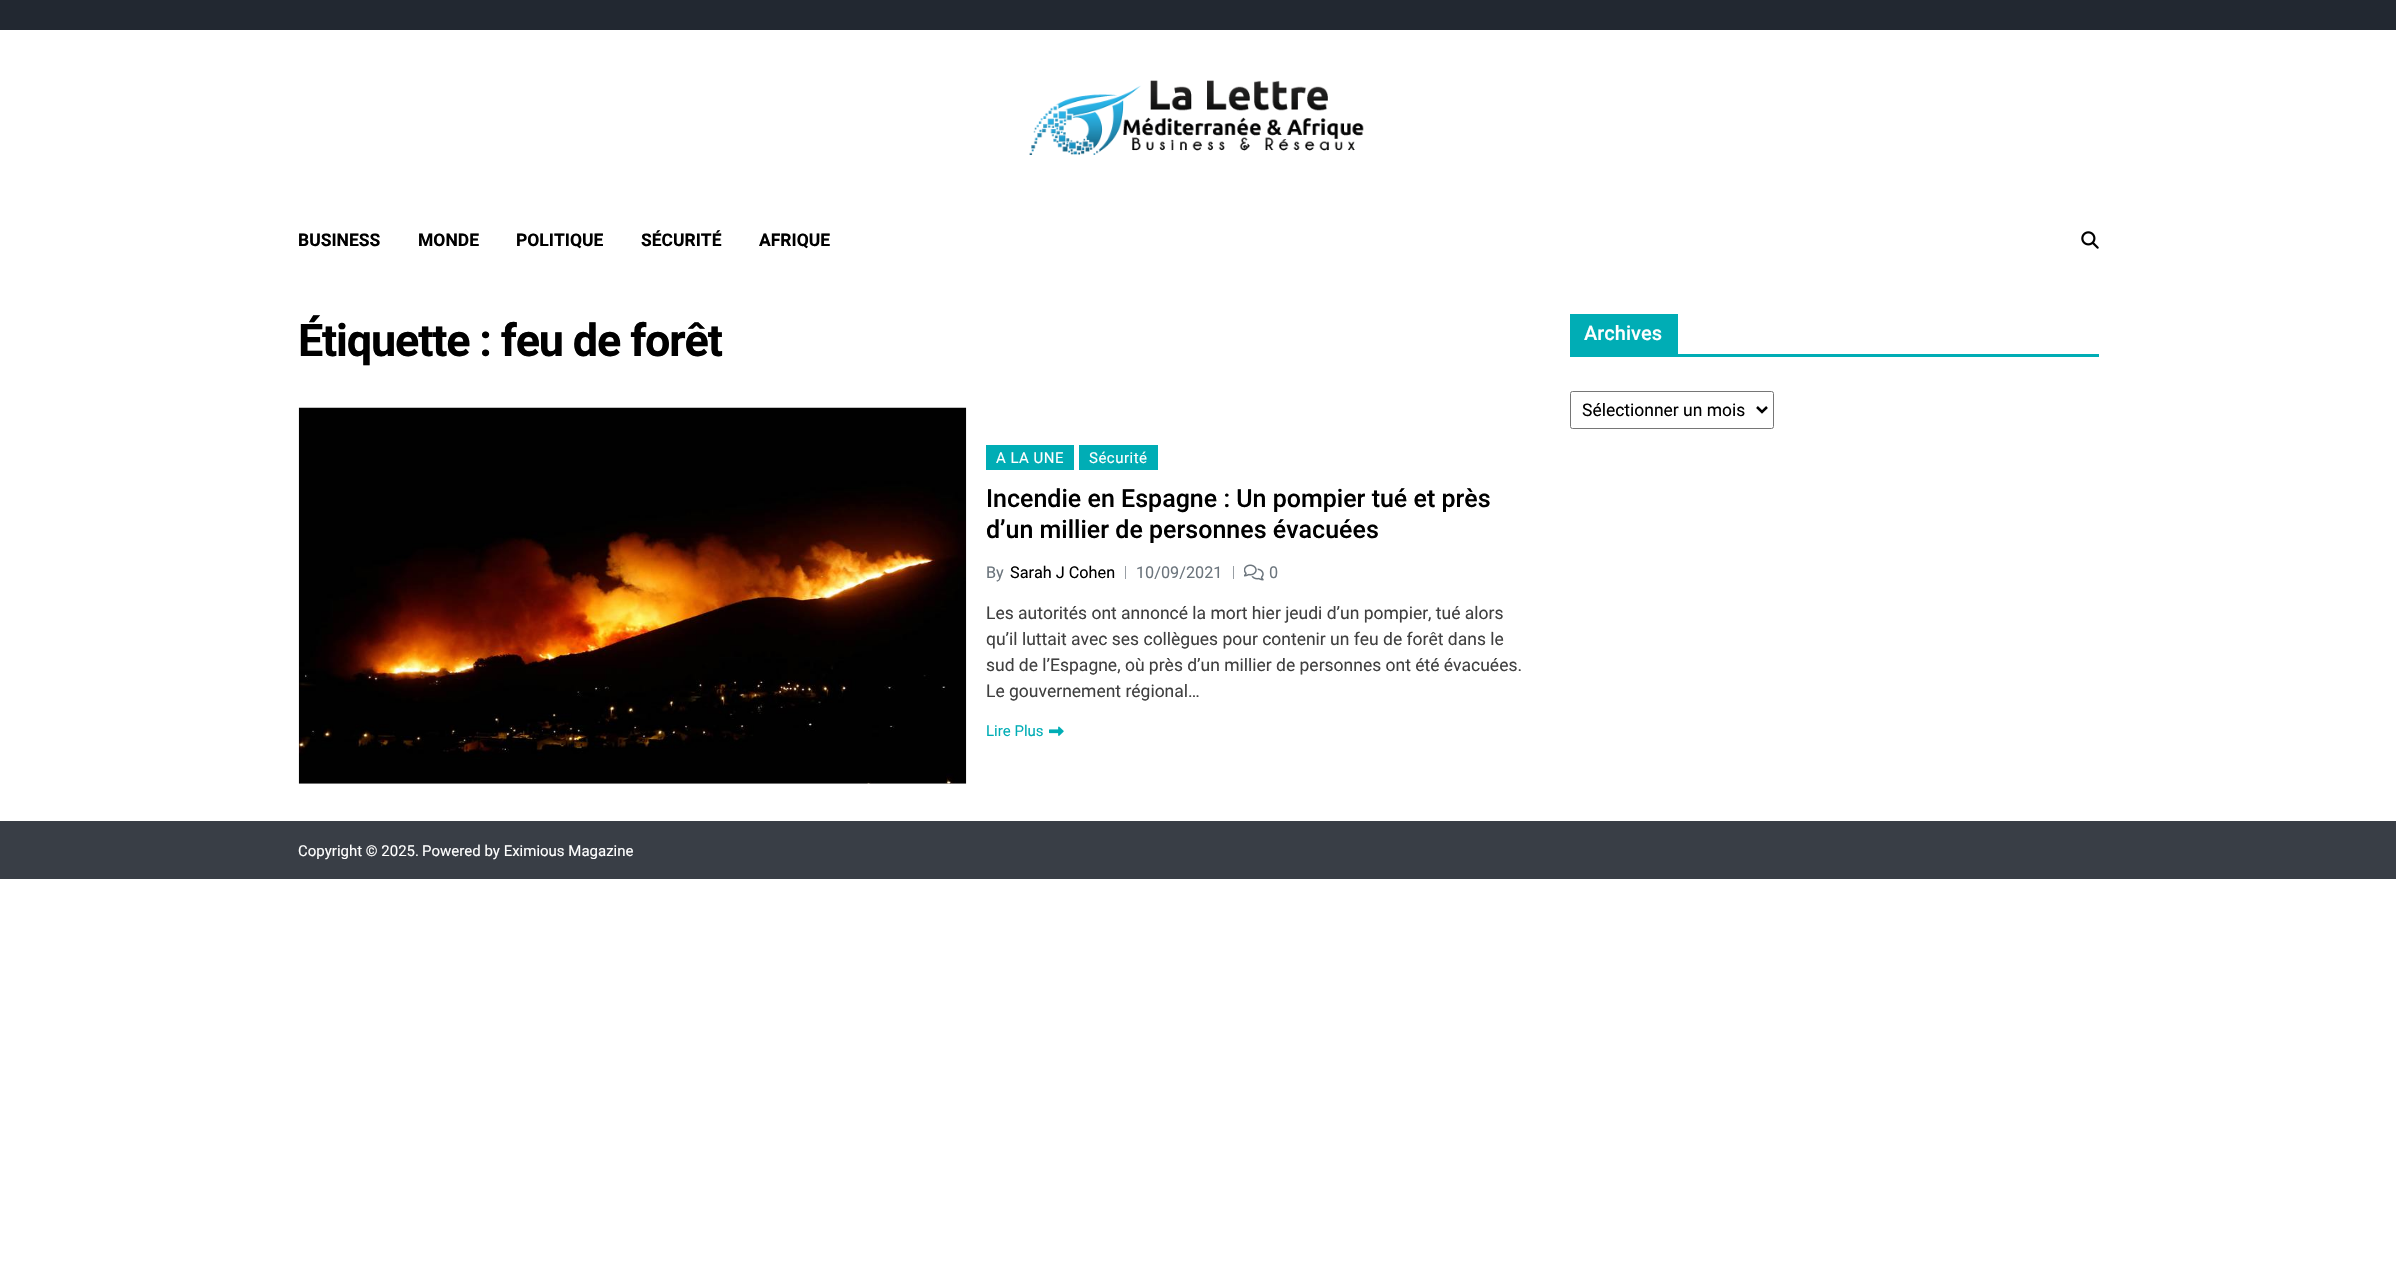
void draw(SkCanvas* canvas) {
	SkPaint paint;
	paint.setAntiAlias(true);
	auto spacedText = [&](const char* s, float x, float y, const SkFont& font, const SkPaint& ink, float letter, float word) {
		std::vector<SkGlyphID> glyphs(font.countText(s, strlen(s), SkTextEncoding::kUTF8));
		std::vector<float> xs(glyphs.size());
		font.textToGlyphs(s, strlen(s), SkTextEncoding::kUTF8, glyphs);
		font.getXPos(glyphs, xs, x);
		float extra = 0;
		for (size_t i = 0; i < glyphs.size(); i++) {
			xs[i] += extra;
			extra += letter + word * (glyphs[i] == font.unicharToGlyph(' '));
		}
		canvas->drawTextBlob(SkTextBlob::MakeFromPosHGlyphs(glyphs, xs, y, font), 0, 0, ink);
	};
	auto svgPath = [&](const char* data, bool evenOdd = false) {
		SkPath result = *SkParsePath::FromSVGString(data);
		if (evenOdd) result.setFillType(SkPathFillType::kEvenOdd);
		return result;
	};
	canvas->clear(0xffffffff);
	paint.setColor(0xff222831);
	canvas->drawRect(SkRect::MakeXYWH(0, 0, 2396, 30), paint);
	canvas->drawImageRect(SkImages::DeferredFromEncodedData(SkData::MakeFromFileName("img1.png")), SkRect::MakeXYWH(1029, 80, 335, 75), SkSamplingOptions());
	SkFont f1(fontMgr->matchFamilyStyle("Roboto", SkFontStyle::Bold()), 17.5);
	f1.setSubpixel(true);
	paint.setColor(0xff000000);
	canvas->drawString("BUSINESS", 298, 246, f1, paint);
	canvas->drawString("MONDE", 418, 246, f1, paint);
	canvas->drawString("POLITIQUE", 516, 246, f1, paint);
	canvas->drawString("SÉCURITÉ", 641, 246, f1, paint);
	canvas->drawString("AFRIQUE", 759, 246, f1, paint);
	canvas->drawImageRect(SkImages::DeferredFromEncodedData(SkData::MakeFromFileName("img2.png")), SkRect::MakeXYWH(2081, 231, 18, 18), SkSamplingOptions());
	SkFont f2(fontMgr->matchFamilyStyle("Roboto", SkFontStyle::Bold()), 45);
	f2.setSubpixel(true);
	spacedText("Étiquette : feu de forêt", 298, 356, f2, paint, -1.2, 0);
	canvas->drawImageRect(SkImages::DeferredFromEncodedData(SkData::MakeFromFileName("img3.png")), SkRect::MakeXYWH(298, 407, 669, 377), SkSamplingOptions());
	paint.setColor(0xff00adb5);
	canvas->drawRect(SkRect::MakeXYWH(986, 445, 88, 25), paint);
	SkFont f3(fontMgr->matchFamilyStyle("Roboto", SkFontStyle::Normal()), 15);
	f3.setSubpixel(true);
	paint.setColor(0xffffffff);
	spacedText("A LA UNE", 996, 463, f3, paint, 0.5, 0);
	paint.setColor(0xff00adb5);
	canvas->drawRect(SkRect::MakeXYWH(1079, 445, 79, 25), paint);
	paint.setColor(0xffffffff);
	spacedText("Sécurité", 1089, 463, f3, paint, 0.5, 0);
	SkFont f4(fontMgr->matchFamilyStyle("Roboto", SkFontStyle(500, SkFontStyle::kNormal_Width, SkFontStyle::kUpright_Slant)), 25);
	f4.setSubpixel(true);
	paint.setColor(0xff000000);
	canvas->drawString("Incendie en Espagne : Un pompier tué et près", 986, 507, f4, paint);
	canvas->drawString("d’un millier de personnes évacuées", 986, 538, f4, paint);
	SkFont f5(fontMgr->matchFamilyStyle("Roboto", SkFontStyle::Normal()), 16.25);
	f5.setSubpixel(true);
	paint.setColor(0xff6c757d);
	canvas->drawString("By", 986, 578, f5, paint);
	paint.setColor(0xff000000);
	canvas->drawString("Sarah J Cohen", 1010, 578, f5, paint);
	paint.setColor(0xff989ea4);
	canvas->drawRect(SkRect::MakeXYWH(1125, 566, 1, 13), paint);
	paint.setColor(0xff6c757d);
	canvas->drawString("10/09/2021", 1136, 578, f5, paint);
	paint.setColor(0xff989ea4);
	canvas->drawRect(SkRect::MakeXYWH(1233, 566, 1, 13), paint);
	canvas->drawImageRect(SkImages::DeferredFromEncodedData(SkData::MakeFromFileName("img4.png")), SkRect::MakeXYWH(1244, 564, 20, 17), SkSamplingOptions());
	paint.setColor(0xff6c757d);
	canvas->drawString("0", 1269, 578, f5, paint);
	SkFont f6(fontMgr->matchFamilyStyle("Roboto", SkFontStyle::Normal()), 17.5);
	f6.setSubpixel(true);
	paint.setColor(0xff404040);
	canvas->drawString("Les autorités ont annoncé la mort hier jeudi d’un pompier, tué alors", 986, 619, f6, paint);
	canvas->drawString("qu’il luttait avec ses collègues pour contenir un feu de forêt dans le", 986, 645, f6, paint);
	canvas->drawString("sud de l’Espagne, où près d’un millier de personnes ont été évacuées.", 986, 671, f6, paint);
	canvas->drawString("Le gouvernement régional…", 986, 697, f6, paint);
	paint.setColor(0xff00adb5);
	canvas->drawString("Lire Plus", 986, 736, f3, paint);
	canvas->drawImageRect(SkImages::DeferredFromEncodedData(SkData::MakeFromFileName("img5.png")), SkRect::MakeXYWH(1049, 726, 15, 10), SkSamplingOptions());
	canvas->drawRect(SkRect::MakeXYWH(1570, 314, 108, 40), paint);
	SkFont f7(fontMgr->matchFamilyStyle("Roboto", SkFontStyle(500, SkFontStyle::kNormal_Width, SkFontStyle::kUpright_Slant)), 20);
	f7.setSubpixel(true);
	paint.setColor(0xffffffff);
	canvas->drawString("Archives", 1584, 340, f7, paint);
	paint.setColor(0xff00adb5);
	canvas->drawRect(SkRect::MakeXYWH(1570, 354, 529, 3), paint);
	paint.setStroke(true);
	paint.setStrokeWidth(1);
	paint.setColor(0xff767676);
	canvas->drawRoundRect(SkRect::MakeXYWH(1570.5, 391.5, 203, 37), 2, 2, paint);
	paint.setStrokeWidth(2.5);
	paint.setColor(0xff000000);
	canvas->drawPath(svgPath("M1757 407L1762 412L1767 407"), paint);
	paint.setStroke(false);
	canvas->drawString("Sélectionner un mois", 1582, 416, f6, paint);
	paint.setColor(0xff393e46);
	canvas->drawRect(SkRect::MakeXYWH(0, 821, 2396, 58), paint);
	paint.setColor(0xffffffff);
	canvas->drawString("Copyright © 2025.", 298, 856, f3, paint);
	canvas->drawString("Powered by Eximious Magazine", 422, 856, f3, paint);
}
